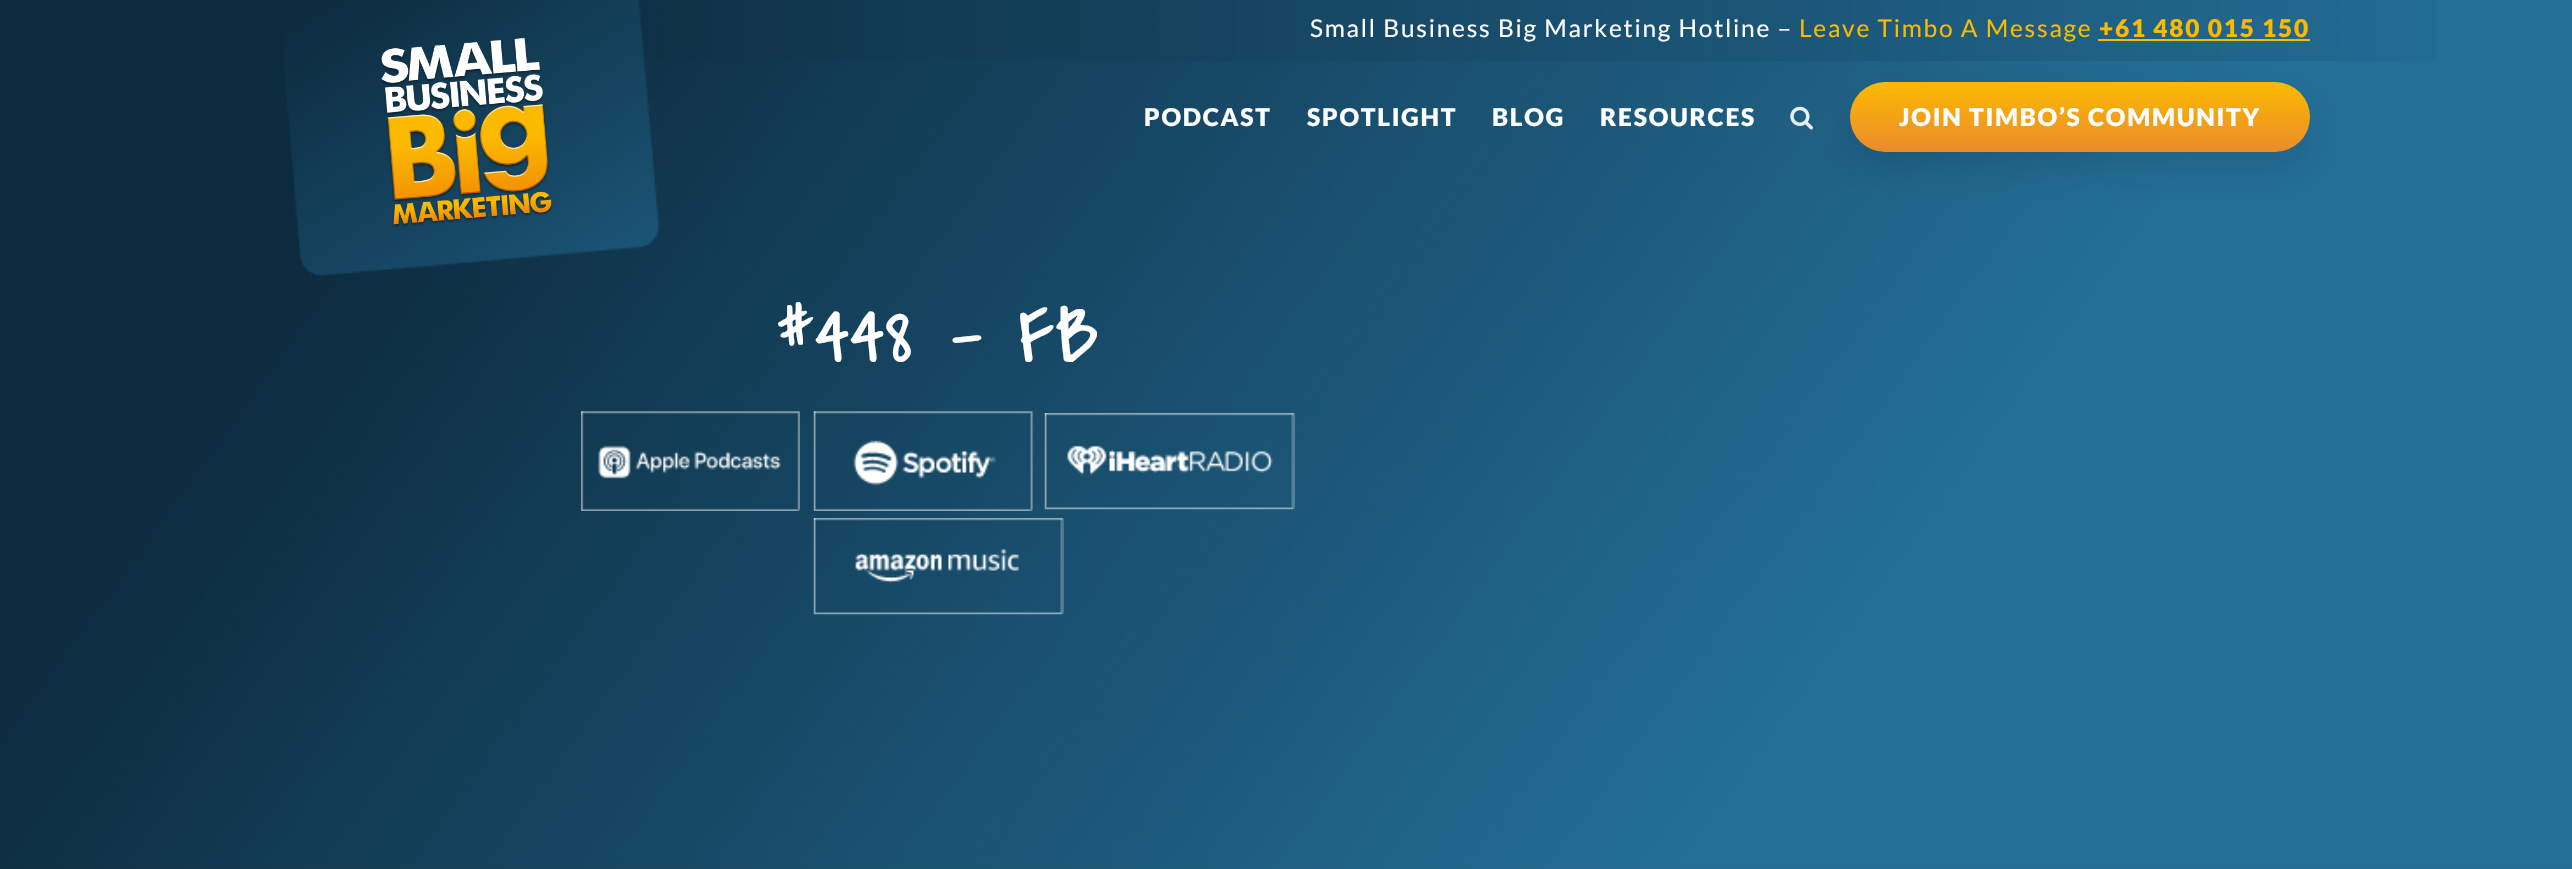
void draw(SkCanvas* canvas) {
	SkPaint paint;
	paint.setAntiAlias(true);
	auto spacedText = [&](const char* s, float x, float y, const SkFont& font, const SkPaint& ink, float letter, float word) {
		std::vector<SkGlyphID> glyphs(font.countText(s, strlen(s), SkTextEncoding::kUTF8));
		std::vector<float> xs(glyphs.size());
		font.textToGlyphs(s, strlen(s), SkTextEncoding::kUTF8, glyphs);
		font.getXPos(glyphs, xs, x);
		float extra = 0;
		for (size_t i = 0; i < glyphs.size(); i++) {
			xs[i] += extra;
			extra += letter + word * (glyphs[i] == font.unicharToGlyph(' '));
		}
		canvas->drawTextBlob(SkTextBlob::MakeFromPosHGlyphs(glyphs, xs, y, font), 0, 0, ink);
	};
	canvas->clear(0xffffffff);
	canvas->drawImageRect(SkImages::DeferredFromEncodedData(SkData::MakeFromFileName("img5.png")), SkRect::MakeXYWH(0, 0, 2572, 869), SkSamplingOptions());
	canvas->drawImageRect(SkImages::DeferredFromEncodedData(SkData::MakeFromFileName("img1.png")), SkRect::MakeXYWH(638, 0, 1798, 61), SkSamplingOptions());
	canvas->drawImageRect(SkImages::DeferredFromEncodedData(SkData::MakeFromFileName("img2.png")), SkRect::MakeXYWH(283, 0, 377, 277), SkSamplingOptions());
	canvas->drawImageRect(SkImages::DeferredFromEncodedData(SkData::MakeFromFileName("img3.png")), SkRect::MakeXYWH(380, 38, 173, 189), SkSamplingOptions());
	SkFont f1(fontMgr->matchFamilyStyle("Lato", SkFontStyle::Normal()), 24.5);
	f1.setSubpixel(true);
	paint.setColor(0xffffffff);
	spacedText("Small Business Big Marketing Hotline –", 1310, 37, f1, paint, 1.75, 0);
	paint.setColor(0xfffbba00);
	spacedText("Leave Timbo A Message", 1799, 37, f1, paint, 1.75, 0);
	SkFont f2(fontMgr->matchFamilyStyle("Lato", SkFontStyle(900, SkFontStyle::kNormal_Width, SkFontStyle::kUpright_Slant)), 24.5);
	f2.setSubpixel(true);
	spacedText("+61 480 015 150", 2099, 37, f2, paint, 1.75, 0);
	canvas->drawRect(SkRect::MakeXYWH(2098, 39, 212, 2), paint);
	paint.setColor(0xffffffff);
	spacedText("PODCAST", 1144, 126, f2, paint, 1.75, 0);
	spacedText("SPOTLIGHT", 1307, 126, f2, paint, 1.75, 0);
	spacedText("BLOG", 1492, 126, f2, paint, 1.75, 0);
	spacedText("RESOURCES", 1600, 126, f2, paint, 1.75, 0);
	canvas->drawImageRect(SkImages::DeferredFromEncodedData(SkData::MakeFromFileName("img4.png")), SkRect::MakeXYWH(1790, 106, 23, 24), SkSamplingOptions());
	paint.setColor(0x1a000000);
	paint.setMaskFilter(SkMaskFilter::MakeBlur(kNormal_SkBlurStyle, 17.5));
	canvas->drawRoundRect(SkRect::MakeXYWH(1850, 100, 460, 70), 35, 35, paint);
	paint.setMaskFilter(nullptr);
	{
		const SkColor colors[] = {0xfffbba00, 0xffea8b2d};
		const float stops[] = {0, 1};
		const SkPoint ends[] = {{2080, 82}, {2080, 152}};
		paint.setShader(SkGradientShader::MakeLinear(ends, colors, stops, 2, SkTileMode::kClamp));
		paint.setAlpha(255);
	}
	canvas->drawRoundRect(SkRect::MakeXYWH(1850, 82, 460, 70), 35, 35, paint);
	paint.setShader(nullptr);
	paint.setColor(0xffffffff);
	spacedText("JOIN TIMBO’S COMMUNITY", 1899, 126, f2, paint, 1.75, 0);
	SkFont f3(fontMgr->matchFamilyStyle("Covered By Your Grace", SkFontStyle::Normal()), 87.5);
	f3.setSubpixel(true);
	canvas->drawString("#448 – FB", 777, 362, f3, paint);
	canvas->drawImageRect(SkImages::DeferredFromEncodedData(SkData::MakeFromFileName("img6.png")), SkRect::MakeXYWH(581, 411, 219, 100), SkSamplingOptions());
	canvas->drawImageRect(SkImages::DeferredFromEncodedData(SkData::MakeFromFileName("img7.png")), SkRect::MakeXYWH(813, 411, 220, 100), SkSamplingOptions());
	canvas->drawImageRect(SkImages::DeferredFromEncodedData(SkData::MakeFromFileName("img8.png")), SkRect::MakeXYWH(1044, 413, 251, 97), SkSamplingOptions());
	canvas->drawImageRect(SkImages::DeferredFromEncodedData(SkData::MakeFromFileName("img9.png")), SkRect::MakeXYWH(813, 518, 251, 97), SkSamplingOptions());
}
